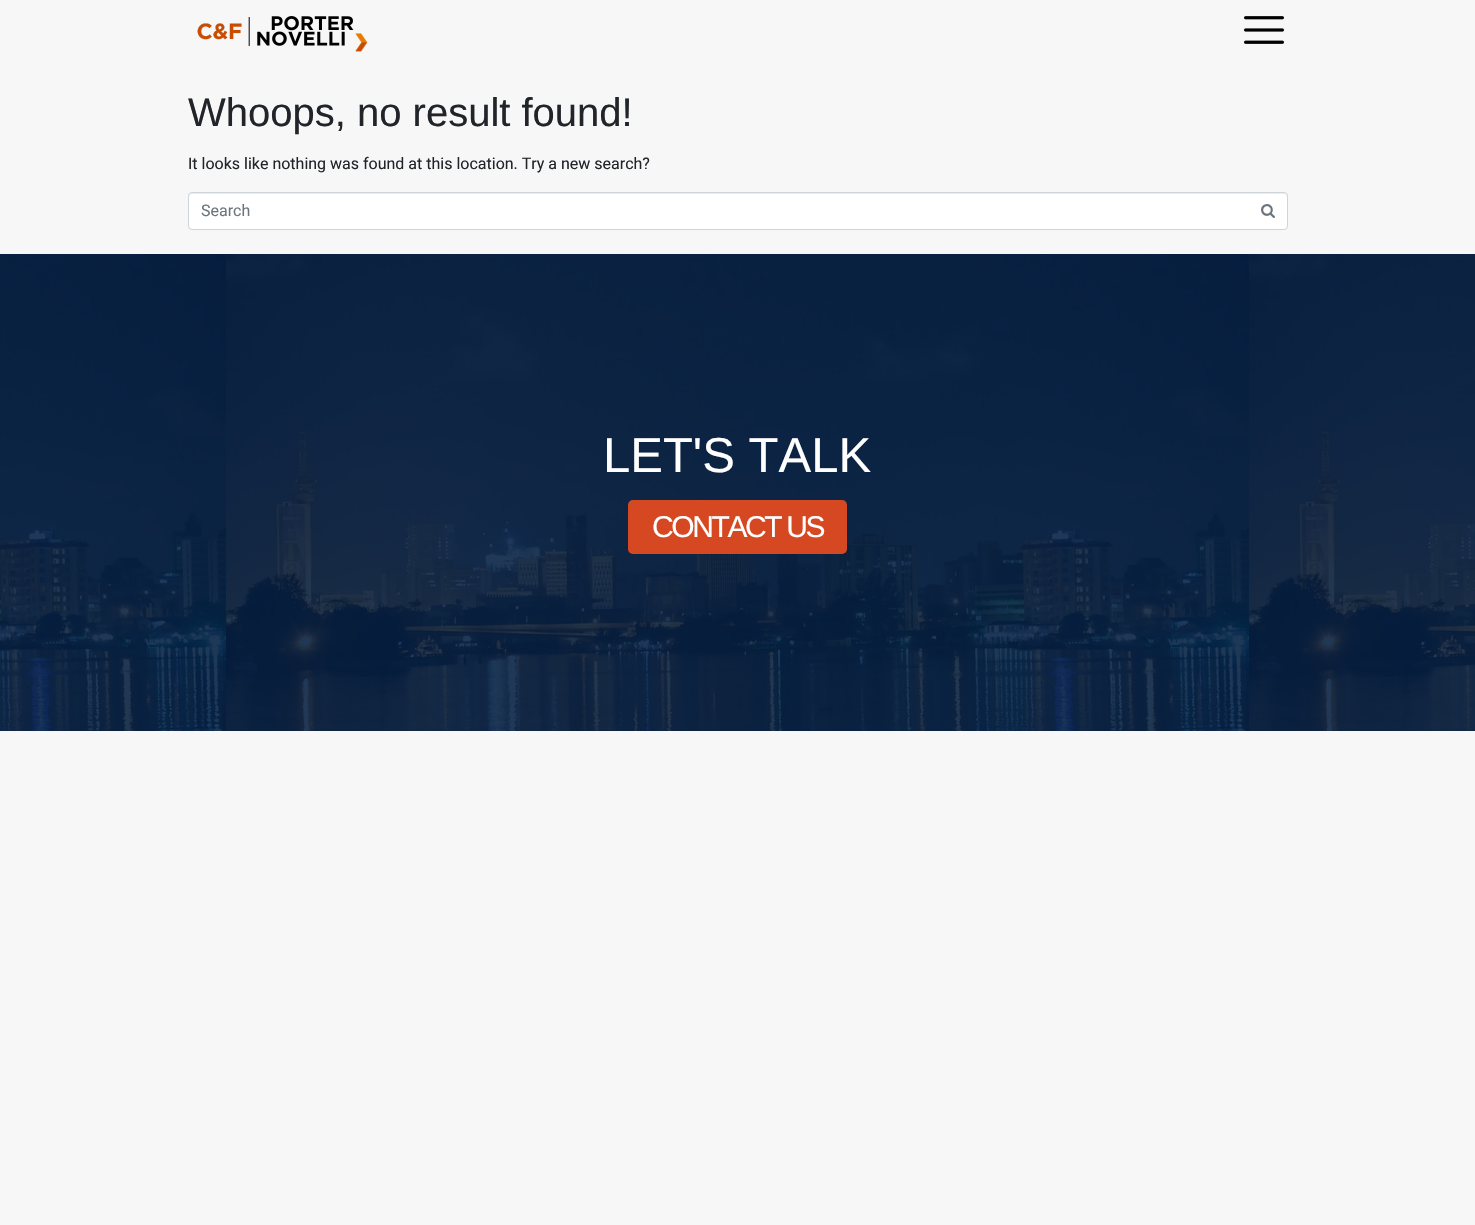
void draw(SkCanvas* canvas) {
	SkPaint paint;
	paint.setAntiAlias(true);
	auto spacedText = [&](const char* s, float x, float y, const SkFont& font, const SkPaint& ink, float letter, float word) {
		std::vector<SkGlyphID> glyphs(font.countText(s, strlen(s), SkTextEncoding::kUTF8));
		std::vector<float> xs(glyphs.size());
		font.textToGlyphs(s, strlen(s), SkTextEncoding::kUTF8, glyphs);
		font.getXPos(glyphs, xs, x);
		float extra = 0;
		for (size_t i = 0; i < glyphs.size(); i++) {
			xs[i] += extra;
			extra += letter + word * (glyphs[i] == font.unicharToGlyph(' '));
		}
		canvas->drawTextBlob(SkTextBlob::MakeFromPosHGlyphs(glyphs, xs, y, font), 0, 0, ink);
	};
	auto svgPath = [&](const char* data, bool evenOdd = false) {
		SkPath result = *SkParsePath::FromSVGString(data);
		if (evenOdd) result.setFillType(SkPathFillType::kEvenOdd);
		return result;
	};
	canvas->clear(0xfff7f7f7);
	canvas->drawImageRect(SkImages::DeferredFromEncodedData(SkData::MakeFromFileName("img1.png")), SkRect::MakeXYWH(197, 16, 171, 36), SkSamplingOptions());
	canvas->drawImageRect(SkImages::DeferredFromEncodedData(SkData::MakeFromFileName("img2.png")), SkRect::MakeXYWH(1244, 16, 40, 28), SkSamplingOptions());
	SkFont f1(fontMgr->matchFamilyStyle("Liberation Sans", SkFontStyle::Normal()), 40);
	f1.setSubpixel(true);
	paint.setColor(0xff212529);
	canvas->drawString("Whoops, no result found!", 188, 126, f1, paint);
	SkFont f2(fontMgr->matchFamilyStyle("Roboto", SkFontStyle::Normal()), 16);
	f2.setSubpixel(true);
	canvas->drawString("It looks like nothing was found at this location. Try a new search?", 188, 169, f2, paint);
	paint.setColor(0xffffffff);
	canvas->drawRoundRect(SkRect::MakeXYWH(189, 193, 1098, 36), 3, 3, paint);
	paint.setColor(0x12000000);
	canvas->drawPath(svgPath("M192 194H1284C1286 194 1287 195 1287 197V196C1287 194 1286 193 1284 193H192C190 193 189 194 189 196V197C189 195 190 194 192 194Z"), paint);
	paint.setStroke(true);
	paint.setStrokeWidth(1);
	paint.setColor(0xffced4da);
	canvas->drawRoundRect(SkRect::MakeXYWH(188.5, 192.5, 1099, 37), 3.5, 3.5, paint);
	paint.setStroke(false);
	paint.setColor(0xff6c757d);
	canvas->drawString("Search", 201, 216, f2, paint);
	canvas->drawImageRect(SkImages::DeferredFromEncodedData(SkData::MakeFromFileName("img3.png")), SkRect::MakeXYWH(1261, 204, 14, 15), SkSamplingOptions());
	canvas->drawImageRect(SkImages::DeferredFromEncodedData(SkData::MakeFromFileName("img4.png")), SkRect::MakeXYWH(0, 254, 1475, 477), SkSamplingOptions());
	SkFont f3(fontMgr->matchFamilyStyle("Liberation Sans", SkFontStyle::Normal()), 49);
	f3.setSubpixel(true);
	paint.setColor(0xffffffff);
	canvas->drawString("LET'S TALK", 603, 472, f3, paint);
	paint.setColor(0xffd64822);
	canvas->drawRoundRect(SkRect::MakeXYWH(628, 500, 219, 54), 5, 5, paint);
	SkFont f4(fontMgr->matchFamilyStyle("Liberation Sans", SkFontStyle::Normal()), 30);
	f4.setSubpixel(true);
	paint.setColor(0xffffffff);
	spacedText("CONTACT US", 652, 537, f4, paint, -2.4, 0);
}
